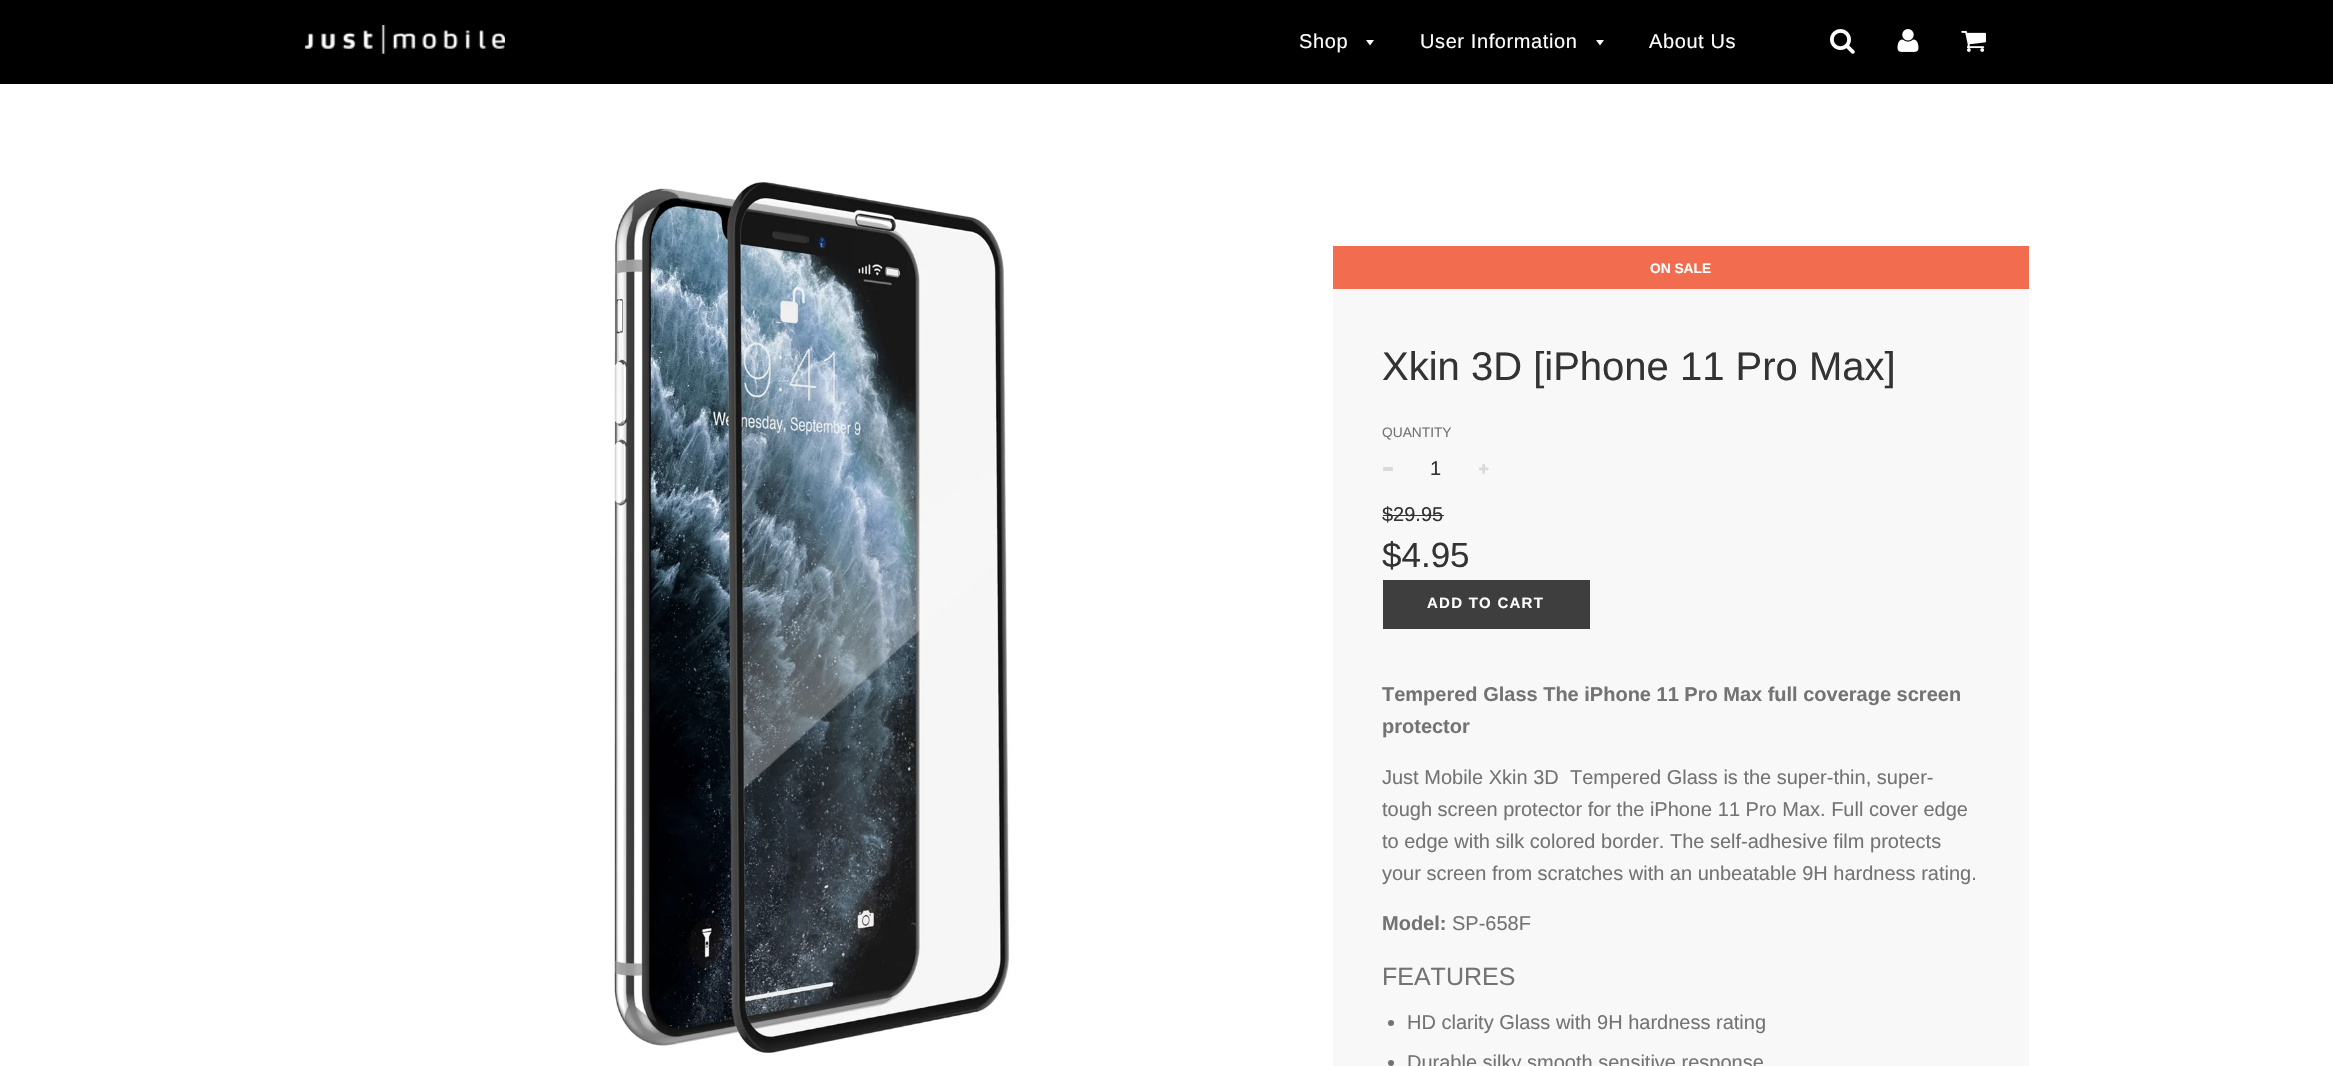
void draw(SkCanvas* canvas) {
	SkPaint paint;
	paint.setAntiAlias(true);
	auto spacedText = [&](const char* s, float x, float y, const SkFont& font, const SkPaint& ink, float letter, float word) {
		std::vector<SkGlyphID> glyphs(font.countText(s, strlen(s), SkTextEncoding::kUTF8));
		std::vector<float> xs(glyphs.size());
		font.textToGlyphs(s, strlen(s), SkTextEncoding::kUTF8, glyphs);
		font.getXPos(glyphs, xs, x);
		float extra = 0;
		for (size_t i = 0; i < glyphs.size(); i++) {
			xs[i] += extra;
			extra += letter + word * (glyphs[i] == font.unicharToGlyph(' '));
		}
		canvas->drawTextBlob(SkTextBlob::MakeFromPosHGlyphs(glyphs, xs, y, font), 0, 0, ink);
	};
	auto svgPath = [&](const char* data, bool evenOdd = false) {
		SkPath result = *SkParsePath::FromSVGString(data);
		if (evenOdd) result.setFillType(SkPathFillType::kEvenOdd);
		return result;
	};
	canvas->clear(0xffffffff);
	paint.setColor(0xff000000);
	canvas->drawRect(SkRect::MakeXYWH(0, 0, 2333, 84), paint);
	canvas->drawImageRect(SkImages::DeferredFromEncodedData(SkData::MakeFromFileName("img1.png")), SkRect::MakeXYWH(304, 25, 201, 29), SkSamplingOptions());
	SkFont f1(fontMgr->matchFamilyStyle("Liberation Sans", SkFontStyle::Normal()), 20);
	f1.setSubpixel(true);
	paint.setColor(0xffffffff);
	spacedText("Shop", 1299, 48, f1, paint, 0.6, 0);
	canvas->drawPath(svgPath("M1366 40L1370 45.5L1374 40Z"), paint);
	spacedText("User Information", 1420, 48, f1, paint, 0.6, 0);
	canvas->drawPath(svgPath("M1596 40L1600 45.5L1604 40Z"), paint);
	spacedText("About Us", 1649, 48, f1, paint, 0.6, 0);
	canvas->drawImageRect(SkImages::DeferredFromEncodedData(SkData::MakeFromFileName("img2.png")), SkRect::MakeXYWH(1830, 29, 25, 25), SkSamplingOptions());
	canvas->drawImageRect(SkImages::DeferredFromEncodedData(SkData::MakeFromFileName("img3.png")), SkRect::MakeXYWH(1897, 29, 22, 23), SkSamplingOptions());
	canvas->drawImageRect(SkImages::DeferredFromEncodedData(SkData::MakeFromFileName("img4.png")), SkRect::MakeXYWH(1961, 30, 25, 22), SkSamplingOptions());
	canvas->drawImageRect(SkImages::DeferredFromEncodedData(SkData::MakeFromFileName("img5.png")), SkRect::MakeXYWH(614, 182, 396, 871), SkSamplingOptions());
	paint.setColor(0xfff26c4f);
	canvas->drawRect(SkRect::MakeXYWH(1333, 246, 696, 43), paint);
	SkFont f2(fontMgr->matchFamilyStyle("Liberation Sans", SkFontStyle::Bold()), 13.75);
	f2.setSubpixel(true);
	paint.setColor(0xffffffff);
	canvas->drawString("ON SALE", 1650, 273, f2, paint);
	paint.setColor(0xfff8f8f8);
	canvas->drawRect(SkRect::MakeXYWH(1333, 289, 696, 777), paint);
	SkFont f3(fontMgr->matchFamilyStyle("Liberation Sans", SkFontStyle::Normal()), 40);
	f3.setSubpixel(true);
	paint.setColor(0xff333333);
	canvas->drawString("Xkin 3D [iPhone 11 Pro Max]", 1382, 380, f3, paint);
	SkFont f4(fontMgr->matchFamilyStyle("Liberation Sans", SkFontStyle::Normal()), 13.75);
	f4.setSubpixel(true);
	paint.setColor(0xff737373);
	canvas->drawString("QUANTITY", 1382, 437, f4, paint);
	paint.setColor(0xffdadada);
	canvas->drawRect(SkRect::MakeXYWH(1383, 467, 10, 4), paint);
	paint.setColor(0xff333333);
	canvas->drawString("1", 1430, 475, f1, paint);
	canvas->drawImageRect(SkImages::DeferredFromEncodedData(SkData::MakeFromFileName("img6.png")), SkRect::MakeXYWH(1479, 464, 10, 10), SkSamplingOptions());
	canvas->drawString("$29.95", 1382, 521, f1, paint);
	canvas->drawRect(SkRect::MakeXYWH(1383, 515, 61, 1), paint);
	SkFont f5(fontMgr->matchFamilyStyle("Liberation Sans", SkFontStyle::Normal()), 35);
	f5.setSubpixel(true);
	canvas->drawString("$4.95", 1382, 567, f5, paint);
	paint.setColor(0xff3e3e3e);
	canvas->drawRect(SkRect::MakeXYWH(1383, 580, 207, 49), paint);
	SkFont f6(fontMgr->matchFamilyStyle("Liberation Sans", SkFontStyle::Bold()), 15);
	f6.setSubpixel(true);
	paint.setColor(0xffffffff);
	spacedText("ADD TO CART", 1427, 608, f6, paint, 1.25, 0);
	SkFont f7(fontMgr->matchFamilyStyle("Liberation Sans", SkFontStyle::Bold()), 20);
	f7.setSubpixel(true);
	paint.setColor(0xff737373);
	canvas->drawString("Tempered Glass The iPhone 11 Pro Max full coverage screen", 1382, 701, f7, paint);
	canvas->drawString("protector", 1382, 733, f7, paint);
	canvas->drawString("Just Mobile Xkin 3D", 1382, 784, f1, paint);
	canvas->drawString("Tempered Glass is the super-thin, super-", 1570, 784, f1, paint);
	canvas->drawString("tough screen protector for the iPhone 11 Pro Max. Full cover edge", 1382, 816, f1, paint);
	canvas->drawString("to edge with silk colored border. The self-adhesive film protects", 1382, 848, f1, paint);
	canvas->drawString("your screen from scratches with an unbeatable 9H hardness rating.", 1382, 880, f1, paint);
	canvas->drawString("Model:", 1382, 930, f7, paint);
	canvas->drawString("SP-658F", 1452, 930, f1, paint);
	SkFont f8(fontMgr->matchFamilyStyle("Liberation Sans", SkFontStyle::Normal()), 25);
	f8.setSubpixel(true);
	canvas->drawString("FEATURES", 1382, 985, f8, paint);
	canvas->drawCircle(1391, 1023, 3, paint);
	canvas->drawString("HD clarity Glass with 9H hardness rating", 1407, 1029, f1, paint);
	canvas->drawCircle(1391, 1063, 3, paint);
	canvas->drawString("Durable silky smooth sensitive response", 1407, 1069, f1, paint);
}
